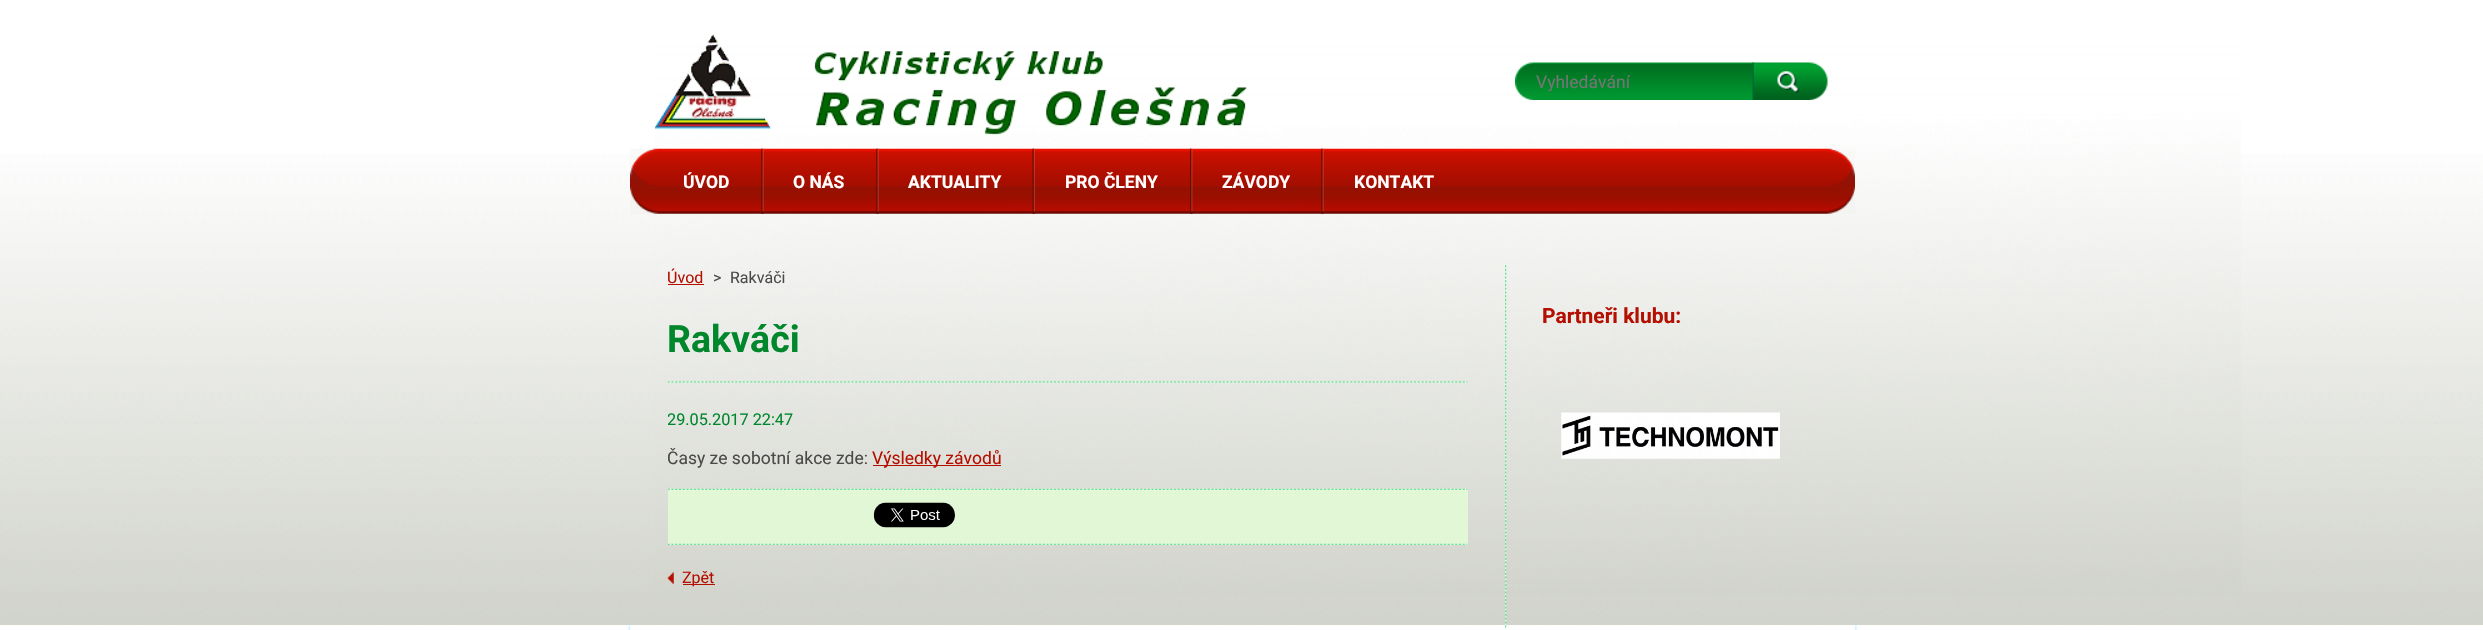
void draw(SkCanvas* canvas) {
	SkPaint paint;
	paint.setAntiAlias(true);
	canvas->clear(0xffffffff);
	canvas->drawImageRect(SkImages::DeferredFromEncodedData(SkData::MakeFromFileName("img1.png")), SkRect::MakeXYWH(0, 154, 2483, 471), SkSamplingOptions());
	canvas->drawImageRect(SkImages::DeferredFromEncodedData(SkData::MakeFromFileName("img2.png")), SkRect::MakeXYWH(654, 34, 1587, 561), SkSamplingOptions());
	canvas->drawImageRect(SkImages::DeferredFromEncodedData(SkData::MakeFromFileName("img3.png")), SkRect::MakeXYWH(1515, 62, 239, 38), SkSamplingOptions());
	canvas->save();
	canvas->clipRect(SkRect::MakeXYWH(1536, 71, 207, 20));
	SkFont f1(fontMgr->matchFamilyStyle("Roboto", SkFontStyle::Normal()), 17.5);
	f1.setSubpixel(true);
	paint.setColor(0xff757575);
	canvas->drawString("Vyhledávání", 1536, 88, f1, paint);
	canvas->restore();
	canvas->drawImageRect(SkImages::DeferredFromEncodedData(SkData::MakeFromFileName("img4.png")), SkRect::MakeXYWH(1752, 62, 76, 38), SkSamplingOptions());
	canvas->drawImageRect(SkImages::DeferredFromEncodedData(SkData::MakeFromFileName("img5.png")), SkRect::MakeXYWH(630, 148, 1225, 66), SkSamplingOptions());
	SkFont f2(fontMgr->matchFamilyStyle("Roboto", SkFontStyle::Bold()), 17.5);
	f2.setSubpixel(true);
	paint.setColor(0xffffffff);
	canvas->drawString("ÚVOD", 683, 188, f2, paint);
	canvas->drawImageRect(SkImages::DeferredFromEncodedData(SkData::MakeFromFileName("img6.png")), SkRect::MakeXYWH(761, 148, 3, 66), SkSamplingOptions());
	canvas->drawString("O NÁS", 793, 188, f2, paint);
	canvas->drawImageRect(SkImages::DeferredFromEncodedData(SkData::MakeFromFileName("img7.png")), SkRect::MakeXYWH(876, 148, 3, 66), SkSamplingOptions());
	canvas->drawString("AKTUALITY", 908, 188, f2, paint);
	canvas->drawImageRect(SkImages::DeferredFromEncodedData(SkData::MakeFromFileName("img8.png")), SkRect::MakeXYWH(1032, 148, 3, 66), SkSamplingOptions());
	canvas->drawString("PRO ČLENY", 1065, 188, f2, paint);
	canvas->drawImageRect(SkImages::DeferredFromEncodedData(SkData::MakeFromFileName("img9.png")), SkRect::MakeXYWH(1190, 148, 3, 66), SkSamplingOptions());
	canvas->drawString("ZÁVODY", 1222, 188, f2, paint);
	canvas->drawImageRect(SkImages::DeferredFromEncodedData(SkData::MakeFromFileName("img10.png")), SkRect::MakeXYWH(1321, 148, 3, 66), SkSamplingOptions());
	canvas->drawString("KONTAKT", 1354, 188, f2, paint);
	canvas->drawImageRect(SkImages::DeferredFromEncodedData(SkData::MakeFromFileName("img11.png")), SkRect::MakeXYWH(627, 625, 1231, 5), SkSamplingOptions());
	canvas->drawImageRect(SkImages::DeferredFromEncodedData(SkData::MakeFromFileName("img12.png")), SkRect::MakeXYWH(1505, 265, 2, 364), SkSamplingOptions());
	SkFont f3(fontMgr->matchFamilyStyle("Roboto", SkFontStyle::Normal()), 16);
	f3.setSubpixel(true);
	paint.setColor(0xffb40f00);
	canvas->drawString("Úvod", 667, 283, f3, paint);
	canvas->drawRect(SkRect::MakeXYWH(668, 284, 36, 1), paint);
	paint.setColor(0xff4a4a4a);
	canvas->drawString(">", 713, 283, f3, paint);
	canvas->drawString("Rakváči", 730, 283, f3, paint);
	canvas->drawImageRect(SkImages::DeferredFromEncodedData(SkData::MakeFromFileName("img13.png")), SkRect::MakeXYWH(667, 381, 801, 2), SkSamplingOptions());
	SkFont f4(fontMgr->matchFamilyStyle("Roboto", SkFontStyle::Bold()), 37.5);
	f4.setSubpixel(true);
	paint.setColor(0xff00872c);
	canvas->drawString("Rakváči", 667, 352, f4, paint);
	canvas->save();
	canvas->clipRect(SkRect::MakeXYWH(668, 315, 800, 275));
	SkFont f5(fontMgr->matchFamilyStyle("Roboto", SkFontStyle::Normal()), 16.25);
	f5.setSubpixel(true);
	canvas->drawString("29.05.2017 22:47", 667, 425, f5, paint);
	canvas->restore();
	paint.setColor(0xff4a4a4a);
	canvas->drawString("Časy ze sobotní akce zde:", 667, 464, f1, paint);
	paint.setColor(0xffb40f00);
	canvas->drawRect(SkRect::MakeXYWH(873, 465, 128, 1), paint);
	canvas->drawString("Výsledky závodů", 872, 464, f1, paint);
	canvas->drawImageRect(SkImages::DeferredFromEncodedData(SkData::MakeFromFileName("img14.png")), SkRect::MakeXYWH(667, 488, 801, 2), SkSamplingOptions());
	paint.setColor(0xffe1f7d5);
	canvas->drawRect(SkRect::MakeXYWH(668, 490, 800, 55), paint);
	canvas->drawImageRect(SkImages::DeferredFromEncodedData(SkData::MakeFromFileName("img15.png")), SkRect::MakeXYWH(667, 543, 801, 2), SkSamplingOptions());
	canvas->drawImageRect(SkImages::DeferredFromEncodedData(SkData::MakeFromFileName("img16.png")), SkRect::MakeXYWH(873, 502, 82, 26), SkSamplingOptions());
	canvas->drawImageRect(SkImages::DeferredFromEncodedData(SkData::MakeFromFileName("img17.png")), SkRect::MakeXYWH(667, 572, 7, 12), SkSamplingOptions());
	paint.setColor(0xffb40f00);
	canvas->drawRect(SkRect::MakeXYWH(683, 584, 32, 1), paint);
	canvas->drawString("Zpět", 682, 583, f3, paint);
	SkFont f6(fontMgr->matchFamilyStyle("Roboto", SkFontStyle::Bold()), 21);
	f6.setSubpixel(true);
	canvas->drawString("Partneři klubu:", 1542, 323, f6, paint);
	canvas->drawImageRect(SkImages::DeferredFromEncodedData(SkData::MakeFromFileName("img18.png")), SkRect::MakeXYWH(1561, 412, 219, 47), SkSamplingOptions());
}
